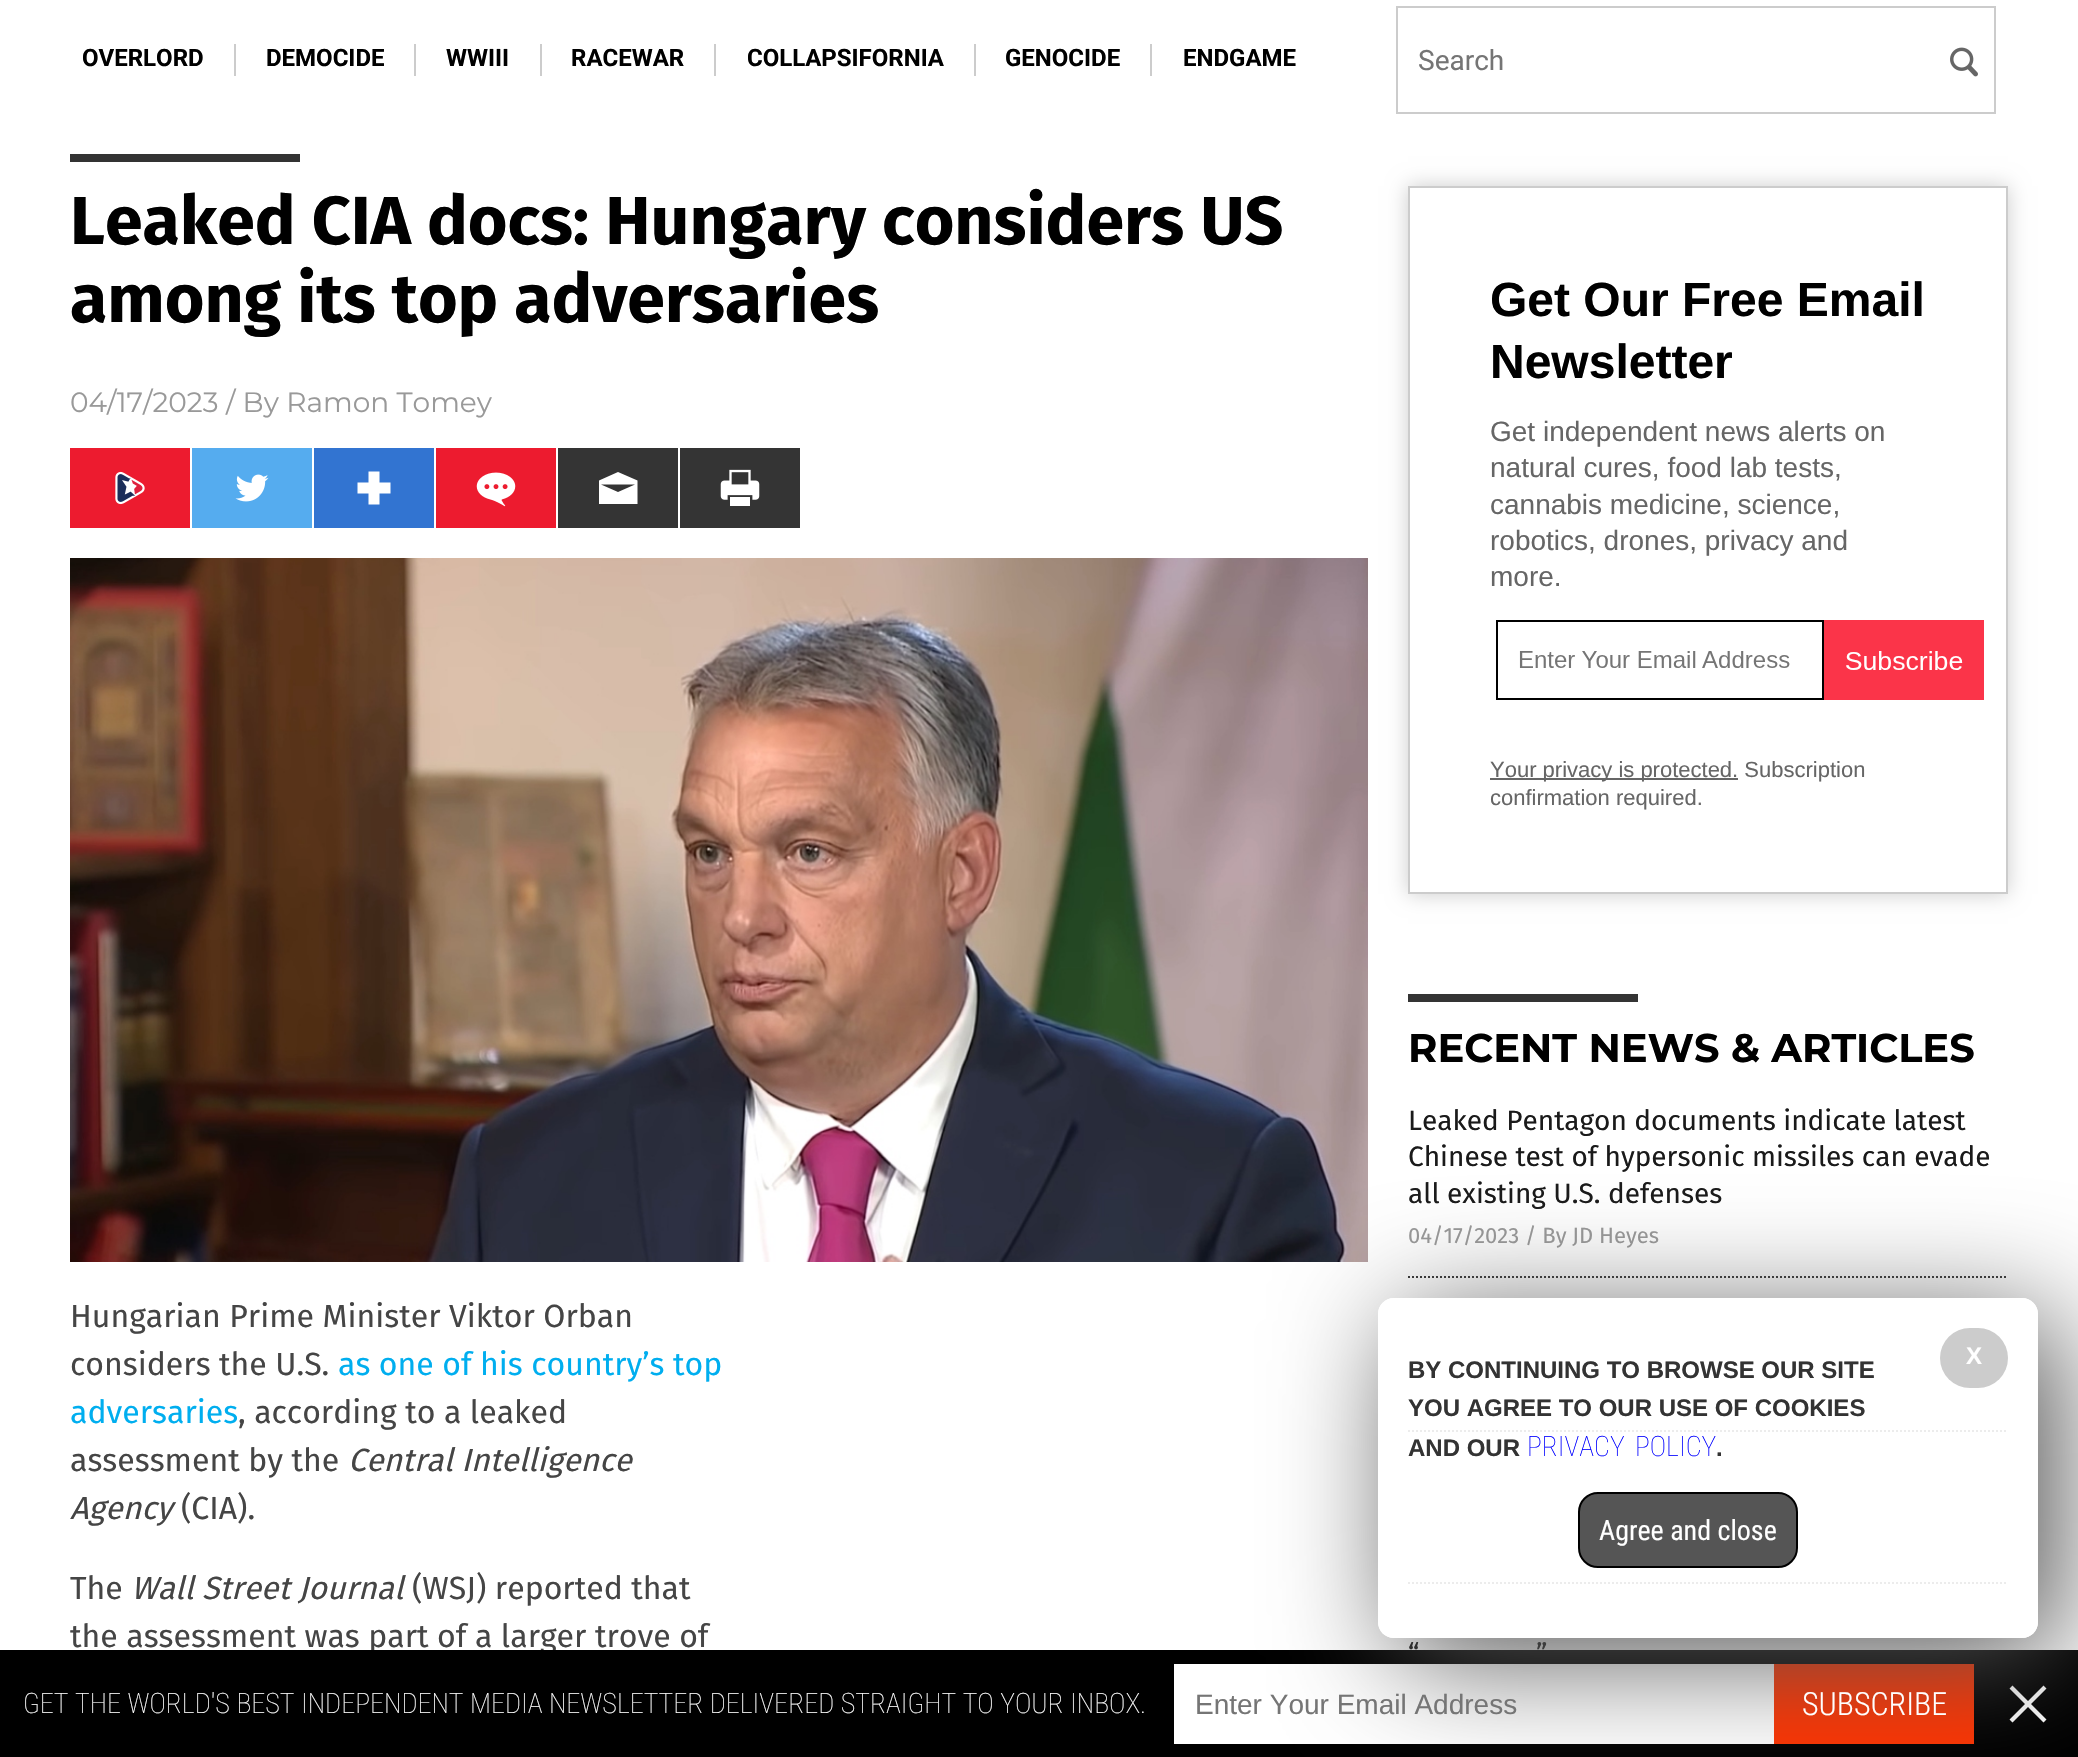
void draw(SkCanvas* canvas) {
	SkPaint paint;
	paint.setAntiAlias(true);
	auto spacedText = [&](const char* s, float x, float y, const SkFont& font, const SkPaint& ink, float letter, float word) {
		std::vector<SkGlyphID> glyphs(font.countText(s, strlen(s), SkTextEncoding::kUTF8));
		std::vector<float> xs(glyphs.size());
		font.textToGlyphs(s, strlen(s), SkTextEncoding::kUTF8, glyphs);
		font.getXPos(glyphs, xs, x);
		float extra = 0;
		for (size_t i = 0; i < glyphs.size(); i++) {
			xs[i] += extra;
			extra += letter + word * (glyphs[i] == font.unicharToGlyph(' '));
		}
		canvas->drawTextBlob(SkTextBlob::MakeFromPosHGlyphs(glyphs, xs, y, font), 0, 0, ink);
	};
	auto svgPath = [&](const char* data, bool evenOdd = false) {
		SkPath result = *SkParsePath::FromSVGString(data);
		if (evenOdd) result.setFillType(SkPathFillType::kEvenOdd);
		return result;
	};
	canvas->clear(0xffffffff);
	paint.setColor(0xffcccccc);
	canvas->drawRect(SkRect::MakeXYWH(234, 44, 2, 32), paint);
	SkFont f1(fontMgr->matchFamilyStyle("Roboto", SkFontStyle::Bold()), 24);
	f1.setSubpixel(true);
	paint.setColor(0xff000000);
	canvas->drawString("OVERLORD", 82, 66, f1, paint);
	paint.setColor(0xffcccccc);
	canvas->drawRect(SkRect::MakeXYWH(414, 44, 2, 32), paint);
	paint.setColor(0xff000000);
	canvas->drawString("DEMOCIDE", 266, 66, f1, paint);
	paint.setColor(0xffcccccc);
	canvas->drawRect(SkRect::MakeXYWH(540, 44, 2, 32), paint);
	paint.setColor(0xff000000);
	canvas->drawString("WWIII", 446, 66, f1, paint);
	paint.setColor(0xffcccccc);
	canvas->drawRect(SkRect::MakeXYWH(714, 44, 2, 32), paint);
	paint.setColor(0xff000000);
	canvas->drawString("RACEWAR", 571, 66, f1, paint);
	paint.setColor(0xffcccccc);
	canvas->drawRect(SkRect::MakeXYWH(974, 44, 2, 32), paint);
	paint.setColor(0xff000000);
	canvas->drawString("COLLAPSIFORNIA", 747, 66, f1, paint);
	paint.setColor(0xffcccccc);
	canvas->drawRect(SkRect::MakeXYWH(1150, 44, 2, 32), paint);
	paint.setColor(0xff000000);
	canvas->drawString("GENOCIDE", 1005, 66, f1, paint);
	canvas->drawString("ENDGAME", 1183, 66, f1, paint);
	paint.setStroke(true);
	paint.setStrokeWidth(2);
	paint.setColor(0xffcccccc);
	canvas->drawRect(SkRect::MakeXYWH(1397, 7, 598, 106), paint);
	SkFont f2(fontMgr->matchFamilyStyle("Roboto", SkFontStyle::Normal()), 28);
	f2.setSubpixel(true);
	paint.setStroke(false);
	paint.setColor(0xff757575);
	canvas->drawString("Search", 1418, 70, f2, paint);
	canvas->drawImageRect(SkImages::DeferredFromEncodedData(SkData::MakeFromFileName("img1.png")), SkRect::MakeXYWH(1950, 47, 28, 30), SkSamplingOptions());
	paint.setColor(0xff333333);
	canvas->drawRect(SkRect::MakeXYWH(70, 154, 230, 8), paint);
	SkFont f3(fontMgr->matchFamilyStyle("Fira Sans", SkFontStyle::Bold()), 68);
	f3.setSubpixel(true);
	paint.setColor(0xff000000);
	canvas->drawString("Leaked CIA docs: Hungary considers US", 70, 244, f3, paint);
	canvas->drawString("among its top adversaries", 70, 322, f3, paint);
	SkFont f4(fontMgr->matchFamilyStyle("Montserrat", SkFontStyle::Normal()), 28);
	f4.setSubpixel(true);
	paint.setColor(0xff999999);
	canvas->drawString("04/17/2023 / By Ramon Tomey", 70, 412, f4, paint);
	paint.setColor(0xffed1b2f);
	canvas->drawRect(SkRect::MakeXYWH(70, 448, 120, 80), paint);
	canvas->drawImageRect(SkImages::DeferredFromEncodedData(SkData::MakeFromFileName("img2.png")), SkRect::MakeXYWH(115, 471, 30, 34), SkSamplingOptions());
	paint.setColor(0xff55acef);
	canvas->drawRect(SkRect::MakeXYWH(192, 448, 120, 80), paint);
	canvas->drawImageRect(SkImages::DeferredFromEncodedData(SkData::MakeFromFileName("img3.png")), SkRect::MakeXYWH(235, 474, 34, 28), SkSamplingOptions());
	paint.setColor(0xff3274d1);
	canvas->drawRect(SkRect::MakeXYWH(314, 448, 120, 80), paint);
	paint.setColor(0xffffffff);
	canvas->drawPath(svgPath("M390.5 482.5H379.5V471.5H368.5V482.5H357.5V493.5H368.5V504.5H379.5V493.5H390.5Z"), paint);
	paint.setColor(0xffed1b2f);
	canvas->drawRect(SkRect::MakeXYWH(436, 448, 120, 80), paint);
	canvas->drawImageRect(SkImages::DeferredFromEncodedData(SkData::MakeFromFileName("img4.png")), SkRect::MakeXYWH(476, 472, 40, 35), SkSamplingOptions());
	paint.setColor(0xff343434);
	canvas->drawRect(SkRect::MakeXYWH(558, 448, 120, 80), paint);
	paint.setColor(0xffffffff);
	canvas->drawPath(svgPath("M618 472L599 480.5V504H637.5V480.5ZM618 492L601 484.5H635Z"), paint);
	paint.setColor(0xff343434);
	canvas->drawRect(SkRect::MakeXYWH(680, 448, 120, 80), paint);
	canvas->drawImageRect(SkImages::DeferredFromEncodedData(SkData::MakeFromFileName("img5.png")), SkRect::MakeXYWH(720, 469, 40, 37), SkSamplingOptions());
	canvas->drawImageRect(SkImages::DeferredFromEncodedData(SkData::MakeFromFileName("img6.png")), SkRect::MakeXYWH(70, 558, 1298, 704), SkSamplingOptions());
	SkFont f5(fontMgr->matchFamilyStyle("Fira Sans", SkFontStyle::Normal()), 32);
	f5.setSubpixel(true);
	paint.setColor(0xff454545);
	canvas->drawString("Hungarian Prime Minister Viktor Orban", 70, 1327, f5, paint);
	canvas->drawString("considers the U.S.", 70, 1375, f5, paint);
	paint.setColor(0xff00aeef);
	canvas->drawString("as one of his country’s top", 338, 1375, f5, paint);
	canvas->drawString("adversaries", 70, 1423, f5, paint);
	paint.setColor(0xff454545);
	canvas->drawString(", according to a leaked", 238, 1423, f5, paint);
	canvas->drawString("assessment by the", 70, 1471, f5, paint);
	SkFont f6(fontMgr->matchFamilyStyle("Fira Sans", SkFontStyle::Italic()), 32);
	f6.setSubpixel(true);
	canvas->drawString("Central Intelligence", 348, 1471, f6, paint);
	canvas->drawString("Agency", 70, 1519, f6, paint);
	canvas->drawString("(CIA).", 181, 1519, f5, paint);
	canvas->drawString("The", 70, 1599, f5, paint);
	canvas->drawString("Wall Street Journal", 131, 1599, f6, paint);
	canvas->drawString("(WSJ) reported that", 412, 1599, f5, paint);
	canvas->drawString("the assessment was part of a larger trove of", 70, 1647, f5, paint);
	canvas->save();
	canvas->clipPath(svgPath("M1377 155H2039V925H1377ZM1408 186H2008V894H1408Z", true), true);
	paint.setColor(0xffcccccc);
	paint.setMaskFilter(SkMaskFilter::MakeBlur(kNormal_SkBlurStyle, 10));
	canvas->drawRect(SkRect::MakeXYWH(1408, 186, 600, 708), paint);
	paint.setMaskFilter(nullptr);
	canvas->restore();
	paint.setStroke(true);
	canvas->drawRect(SkRect::MakeXYWH(1409, 187, 598, 706), paint);
	SkFont f7(fontMgr->matchFamilyStyle("Liberation Sans", SkFontStyle::Bold()), 48);
	f7.setSubpixel(true);
	paint.setStroke(false);
	paint.setColor(0xff000000);
	canvas->drawString("Get Our Free Email", 1490, 316, f7, paint);
	canvas->drawString("Newsletter", 1490, 378, f7, paint);
	SkFont f8(fontMgr->matchFamilyStyle("Liberation Sans", SkFontStyle::Normal()), 28);
	f8.setSubpixel(true);
	paint.setColor(0xff666666);
	canvas->drawString("Get independent news alerts on", 1490, 441, f8, paint);
	canvas->drawString("natural cures, food lab tests,", 1490, 477, f8, paint);
	canvas->drawString("cannabis medicine, science,", 1490, 514, f8, paint);
	canvas->drawString("robotics, drones, privacy and", 1490, 550, f8, paint);
	canvas->drawString("more.", 1490, 586, f8, paint);
	canvas->drawImageRect(SkImages::DeferredFromEncodedData(SkData::MakeFromFileName("img7.png")), SkRect::MakeXYWH(1496, 620, 488, 80), SkSamplingOptions());
	canvas->drawRect(SkRect::MakeXYWH(1490, 778, 248, 2), paint);
	SkFont f9(fontMgr->matchFamilyStyle("Liberation Sans", SkFontStyle::Normal()), 22);
	f9.setSubpixel(true);
	canvas->drawString("Your privacy is protected. Subscription", 1490, 777, f9, paint);
	canvas->drawString("confirmation required.", 1490, 805, f9, paint);
	paint.setColor(0xff343434);
	canvas->drawRect(SkRect::MakeXYWH(1408, 994, 230, 8), paint);
	SkFont f10(fontMgr->matchFamilyStyle("Montserrat", SkFontStyle::Bold()), 40);
	f10.setSubpixel(true);
	paint.setColor(0xff000000);
	canvas->drawString("RECENT NEWS & ARTICLES", 1408, 1062, f10, paint);
	paint.setStroke(true);
	paint.setColor(0xff343434);
	paint.setPathEffect(SkDashPathEffect::Make({{2, 2}}, 0));
	canvas->drawPath(svgPath("M1408 1277H2008"), paint);
	paint.setPathEffect(nullptr);
	SkFont f11(fontMgr->matchFamilyStyle("Fira Sans", SkFontStyle::Normal()), 28);
	f11.setSubpixel(true);
	paint.setStroke(false);
	paint.setColor(0xff1a1a1a);
	canvas->drawString("Leaked Pentagon documents indicate latest", 1408, 1130, f11, paint);
	canvas->drawString("Chinese test of hypersonic missiles can evade", 1408, 1166, f11, paint);
	canvas->drawString("all existing U.S. defenses", 1408, 1203, f11, paint);
	SkFont f12(fontMgr->matchFamilyStyle("Fira Sans", SkFontStyle::Normal()), 22);
	f12.setSubpixel(true);
	paint.setColor(0xff999999);
	canvas->drawString("04/17/2023 / By JD Heyes", 1408, 1243, f12, paint);
	paint.setStroke(true);
	paint.setColor(0xff343434);
	paint.setPathEffect(SkDashPathEffect::Make({{2, 2}}, 0));
	canvas->drawPath(svgPath("M1408 1431H2008"), paint);
	paint.setPathEffect(nullptr);
	paint.setPathEffect(SkDashPathEffect::Make({{2, 2}}, 0));
	canvas->drawPath(svgPath("M1408 1583H2008"), paint);
	paint.setPathEffect(nullptr);
	paint.setStroke(false);
	paint.setColor(0xff1a1a1a);
	canvas->drawString("“", 1408, 1663, f11, paint);
	canvas->drawString("”", 1536, 1663, f11, paint);
	paint.setColor(0xff000000);
	canvas->drawRect(SkRect::MakeXYWH(0, 1650, 2078, 107), paint);
	paint.setColor(0xffffffff);
	canvas->drawRect(SkRect::MakeXYWH(1174, 1664, 600, 80), paint);
	paint.setColor(0xffff3300);
	canvas->drawRect(SkRect::MakeXYWH(1774, 1664, 200, 80), paint);
	paint.setColor(0xffffffff);
	canvas->drawPath(svgPath("M2046.5 1688.5L2043.5 1685.5L2028 1701L2012.5 1685.5L2009.5 1688.5L2025 1704L2009.5 1719.5L2012.5 1722.5L2028 1707L2043.5 1722.5L2046.5 1719.5L2031 1704Z"), paint);
	canvas->save();
	canvas->clipPath(svgPath("M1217 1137H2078V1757H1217ZM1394 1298H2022C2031 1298 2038 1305 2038 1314V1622C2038 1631 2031 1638 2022 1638H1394C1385 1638 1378 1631 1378 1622V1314C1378 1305 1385 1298 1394 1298Z", true), true);
	paint.setColor(0xff555555);
	paint.setMaskFilter(SkMaskFilter::MakeBlur(kNormal_SkBlurStyle, 60));
	canvas->drawRoundRect(SkRect::MakeXYWH(1398, 1318, 660, 340), 16, 16, paint);
	paint.setMaskFilter(nullptr);
	canvas->restore();
	paint.setColor(0xe6ffffff);
	canvas->drawRoundRect(SkRect::MakeXYWH(1378, 1298, 660, 340), 16, 16, paint);
	paint.setColor(0xffcccccc);
	canvas->drawRoundRect(SkRect::MakeXYWH(1940, 1328, 68, 60), 30, 30, paint);
	SkFont f13(fontMgr->matchFamilyStyle("Liberation Sans", SkFontStyle::Bold()), 24);
	f13.setSubpixel(true);
	paint.setColor(0xffffffff);
	canvas->drawString("X", 1966, 1364, f13, paint);
	paint.setColor(0xff333333);
	canvas->drawString("BY CONTINUING TO BROWSE OUR SITE", 1408, 1378, f13, paint);
	canvas->drawString("YOU AGREE TO OUR USE OF COOKIES", 1408, 1416, f13, paint);
	canvas->drawString("AND OUR", 1408, 1456, f13, paint);
	SkFont f14(fontMgr->matchFamilyStyle("Roboto Condensed", SkFontStyle(100, SkFontStyle::kNormal_Width, SkFontStyle::kUpright_Slant)), 28);
	f14.setSubpixel(true);
	paint.setColor(0xff0000ff);
	spacedText("PRIVACY POLICY", 1527, 1456, f14, paint, 0, 4);
	paint.setColor(0xff333333);
	canvas->drawString(".", 1716, 1456, f13, paint);
	paint.setColor(0xff555555);
	canvas->drawRoundRect(SkRect::MakeXYWH(1579, 1493, 218, 74), 19, 19, paint);
	paint.setStroke(true);
	paint.setColor(0xff000000);
	canvas->drawRoundRect(SkRect::MakeXYWH(1579, 1493, 218, 74), 19, 19, paint);
	SkFont f15(fontMgr->matchFamilyStyle("Roboto Condensed", SkFontStyle::Normal()), 28);
	f15.setSubpixel(true);
	paint.setStroke(false);
	paint.setColor(0xffffffff);
	canvas->drawString("Agree and close", 1599, 1540, f15, paint);
	spacedText("GET THE WORLD'S BEST INDEPENDENT MEDIA NEWSLETTER DELIVERED STRAIGHT TO YOUR INBOX.", 23, 1713, f14, paint, 0, 0.25);
	paint.setColor(0xff757575);
	canvas->drawString("Enter Your Email Address", 1195, 1714, f8, paint);
	SkFont f16(fontMgr->matchFamilyStyle("Roboto Condensed", SkFontStyle(300, SkFontStyle::kNormal_Width, SkFontStyle::kUpright_Slant)), 32);
	f16.setSubpixel(true);
	paint.setColor(0xffffffff);
	canvas->drawString("SUBSCRIBE", 1802, 1715, f16, paint);
}
